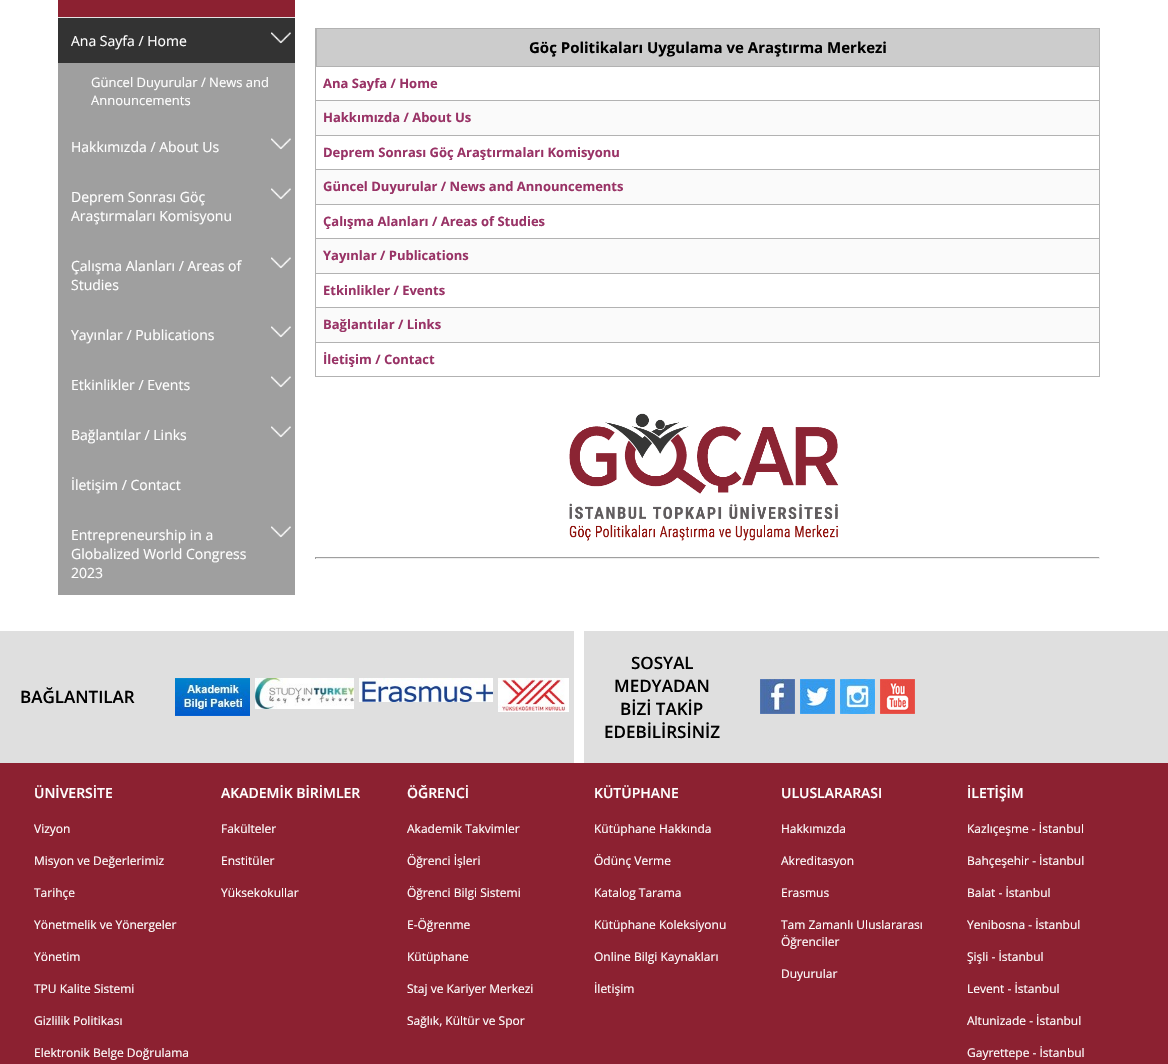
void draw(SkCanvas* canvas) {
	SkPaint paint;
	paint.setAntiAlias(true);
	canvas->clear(0xffffffff);
	paint.setColor(0xff8c2131);
	canvas->drawRect(SkRect::MakeXYWH(58, 0, 237, 17), paint);
	paint.setColor(0xffe4e4e4);
	canvas->drawRect(SkRect::MakeXYWH(58, 17, 237, 1), paint);
	paint.setColor(0xff9f9f9f);
	canvas->drawRect(SkRect::MakeXYWH(58, 63, 237, 532), paint);
	paint.setColor(0xff333333);
	canvas->drawRect(SkRect::MakeXYWH(58, 18, 237, 45), paint);
	SkFont f1(fontMgr->matchFamilyStyle("Open Sans", SkFontStyle::Normal()), 14);
	f1.setSubpixel(true);
	paint.setColor(0xffffffff);
	canvas->drawString("Ana Sayfa / Home", 71, 46, f1, paint);
	canvas->drawImageRect(SkImages::DeferredFromEncodedData(SkData::MakeFromFileName("img1.png")), SkRect::MakeXYWH(271, 32, 20, 12), SkSamplingOptions());
	SkFont f2(fontMgr->matchFamilyStyle("Open Sans", SkFontStyle::Normal()), 13);
	f2.setSubpixel(true);
	canvas->drawString("Güncel Duyurular / News and", 91, 87, f2, paint);
	canvas->drawString("Announcements", 91, 105, f2, paint);
	canvas->drawString("Hakkımızda / About Us", 71, 152, f1, paint);
	canvas->drawImageRect(SkImages::DeferredFromEncodedData(SkData::MakeFromFileName("img2.png")), SkRect::MakeXYWH(271, 138, 20, 12), SkSamplingOptions());
	canvas->drawString("Deprem Sonrası Göç", 71, 202, f1, paint);
	canvas->drawString("Araştırmaları Komisyonu", 71, 221, f1, paint);
	canvas->drawImageRect(SkImages::DeferredFromEncodedData(SkData::MakeFromFileName("img2.png")), SkRect::MakeXYWH(271, 188, 20, 12), SkSamplingOptions());
	canvas->drawString("Çalışma Alanları / Areas of", 71, 271, f1, paint);
	canvas->drawString("Studies", 71, 290, f1, paint);
	canvas->drawImageRect(SkImages::DeferredFromEncodedData(SkData::MakeFromFileName("img2.png")), SkRect::MakeXYWH(271, 257, 20, 12), SkSamplingOptions());
	canvas->drawString("Yayınlar / Publications", 71, 340, f1, paint);
	canvas->drawImageRect(SkImages::DeferredFromEncodedData(SkData::MakeFromFileName("img2.png")), SkRect::MakeXYWH(271, 326, 20, 12), SkSamplingOptions());
	canvas->drawString("Etkinlikler / Events", 71, 390, f1, paint);
	canvas->drawImageRect(SkImages::DeferredFromEncodedData(SkData::MakeFromFileName("img2.png")), SkRect::MakeXYWH(271, 376, 20, 12), SkSamplingOptions());
	canvas->drawString("Bağlantılar / Links", 71, 440, f1, paint);
	canvas->drawImageRect(SkImages::DeferredFromEncodedData(SkData::MakeFromFileName("img2.png")), SkRect::MakeXYWH(271, 426, 20, 12), SkSamplingOptions());
	canvas->drawString("İletişim / Contact", 71, 490, f1, paint);
	canvas->drawString("Entrepreneurship in a", 71, 540, f1, paint);
	canvas->drawString("Globalized World Congress", 71, 559, f1, paint);
	canvas->drawString("2023", 71, 578, f1, paint);
	canvas->drawImageRect(SkImages::DeferredFromEncodedData(SkData::MakeFromFileName("img2.png")), SkRect::MakeXYWH(271, 526, 20, 12), SkSamplingOptions());
	paint.setStroke(true);
	paint.setStrokeWidth(1);
	paint.setColor(0xffb2b2b2);
	canvas->drawRect(SkRect::MakeXYWH(315.5, 28.5, 784, 348), paint);
	paint.setStroke(false);
	paint.setColor(0xffcccccc);
	canvas->drawRect(SkRect::MakeXYWH(317, 29, 782, 37), paint);
	paint.setColor(0xffb2b2b2);
	canvas->drawRect(SkRect::MakeXYWH(316, 66, 783, 1), paint);
	canvas->drawRect(SkRect::MakeXYWH(316, 29, 1, 38), paint);
	SkFont f3(fontMgr->matchFamilyStyle("Open Sans", SkFontStyle::Bold()), 15);
	f3.setSubpixel(true);
	paint.setColor(0xff000000);
	canvas->drawString("Göç Politikaları Uygulama ve Araştırma Merkezi", 529, 53, f3, paint);
	paint.setColor(0xffb2b2b2);
	canvas->drawRect(SkRect::MakeXYWH(316, 100, 783, 1), paint);
	SkFont f4(fontMgr->matchFamilyStyle("Open Sans", SkFontStyle::Bold()), 13);
	f4.setSubpixel(true);
	paint.setColor(0xff993366);
	canvas->drawString("Ana Sayfa / Home", 323, 88, f4, paint);
	paint.setColor(0xfffafafa);
	canvas->drawRect(SkRect::MakeXYWH(316, 101, 783, 34), paint);
	paint.setColor(0xffb2b2b2);
	canvas->drawRect(SkRect::MakeXYWH(316, 135, 783, 1), paint);
	paint.setColor(0xff993366);
	canvas->drawString("Hakkımızda / About Us", 323, 122, f4, paint);
	paint.setColor(0xffb2b2b2);
	canvas->drawRect(SkRect::MakeXYWH(316, 169, 783, 1), paint);
	paint.setColor(0xff993366);
	canvas->drawString("Deprem Sonrası Göç Araştırmaları Komisyonu", 323, 157, f4, paint);
	paint.setColor(0xfffafafa);
	canvas->drawRect(SkRect::MakeXYWH(316, 170, 783, 34), paint);
	paint.setColor(0xffb2b2b2);
	canvas->drawRect(SkRect::MakeXYWH(316, 204, 783, 1), paint);
	paint.setColor(0xff993366);
	canvas->drawString("Güncel Duyurular / News and Announcements", 323, 191, f4, paint);
	paint.setColor(0xffb2b2b2);
	canvas->drawRect(SkRect::MakeXYWH(316, 238, 783, 1), paint);
	paint.setColor(0xff993366);
	canvas->drawString("Çalışma Alanları / Areas of Studies", 323, 226, f4, paint);
	paint.setColor(0xfffafafa);
	canvas->drawRect(SkRect::MakeXYWH(316, 239, 783, 34), paint);
	paint.setColor(0xffb2b2b2);
	canvas->drawRect(SkRect::MakeXYWH(316, 273, 783, 1), paint);
	paint.setColor(0xff993366);
	canvas->drawString("Yayınlar / Publications", 323, 260, f4, paint);
	paint.setColor(0xffb2b2b2);
	canvas->drawRect(SkRect::MakeXYWH(316, 307, 783, 1), paint);
	paint.setColor(0xff993366);
	canvas->drawString("Etkinlikler / Events", 323, 295, f4, paint);
	paint.setColor(0xfffafafa);
	canvas->drawRect(SkRect::MakeXYWH(316, 308, 783, 34), paint);
	paint.setColor(0xffb2b2b2);
	canvas->drawRect(SkRect::MakeXYWH(316, 342, 783, 1), paint);
	paint.setColor(0xff993366);
	canvas->drawString("Bağlantılar / Links", 323, 329, f4, paint);
	canvas->drawString("İletişim / Contact", 323, 364, f4, paint);
	canvas->drawImageRect(SkImages::DeferredFromEncodedData(SkData::MakeFromFileName("img3.png")), SkRect::MakeXYWH(569, 413, 270, 128), SkSamplingOptions());
	paint.setColor(0xff9f9f9f);
	canvas->drawRect(SkRect::MakeXYWH(315, 557, 785, 1), paint);
	paint.setColor(0xffeeeeee);
	canvas->drawRect(SkRect::MakeXYWH(1099, 557, 1, 2), paint);
	canvas->drawRect(SkRect::MakeXYWH(315, 558, 785, 1), paint);
	paint.setColor(0xff9f9f9f);
	canvas->drawRect(SkRect::MakeXYWH(315, 557, 1, 2), paint);
	paint.setColor(0xffdfdfdf);
	canvas->drawRect(SkRect::MakeXYWH(0, 631, 574, 132), paint);
	SkFont f5(fontMgr->matchFamilyStyle("Open Sans", SkFontStyle(600, SkFontStyle::kNormal_Width, SkFontStyle::kUpright_Slant)), 17);
	f5.setSubpixel(true);
	paint.setColor(0xff000000);
	canvas->drawString("BAĞLANTILAR", 20, 703, f5, paint);
	canvas->drawImageRect(SkImages::DeferredFromEncodedData(SkData::MakeFromFileName("img4.png")), SkRect::MakeXYWH(175, 678, 75, 38), SkSamplingOptions());
	canvas->drawImageRect(SkImages::DeferredFromEncodedData(SkData::MakeFromFileName("img5.png")), SkRect::MakeXYWH(255, 678, 99, 31), SkSamplingOptions());
	canvas->drawImageRect(SkImages::DeferredFromEncodedData(SkData::MakeFromFileName("img6.png")), SkRect::MakeXYWH(359, 678, 134, 24), SkSamplingOptions());
	canvas->drawImageRect(SkImages::DeferredFromEncodedData(SkData::MakeFromFileName("img7.png")), SkRect::MakeXYWH(498, 678, 71, 34), SkSamplingOptions());
	paint.setColor(0xffdfdfdf);
	canvas->drawRect(SkRect::MakeXYWH(584, 631, 584, 132), paint);
	paint.setColor(0xff000000);
	canvas->drawString("SOSYAL", 631, 669, f5, paint);
	canvas->drawString("MEDYADAN", 614, 692, f5, paint);
	canvas->drawString("BİZİ TAKİP", 620, 715, f5, paint);
	canvas->drawString("EDEBİLİRSİNİZ", 604, 738, f5, paint);
	canvas->drawImageRect(SkImages::DeferredFromEncodedData(SkData::MakeFromFileName("img8.png")), SkRect::MakeXYWH(760, 679, 35, 35), SkSamplingOptions());
	canvas->drawImageRect(SkImages::DeferredFromEncodedData(SkData::MakeFromFileName("img9.png")), SkRect::MakeXYWH(800, 679, 35, 35), SkSamplingOptions());
	canvas->drawImageRect(SkImages::DeferredFromEncodedData(SkData::MakeFromFileName("img10.png")), SkRect::MakeXYWH(840, 679, 35, 35), SkSamplingOptions());
	canvas->drawImageRect(SkImages::DeferredFromEncodedData(SkData::MakeFromFileName("img11.png")), SkRect::MakeXYWH(880, 679, 35, 35), SkSamplingOptions());
	paint.setColor(0xff8c2131);
	canvas->drawRect(SkRect::MakeXYWH(0, 763, 1168, 301), paint);
	SkFont f6(fontMgr->matchFamilyStyle("Open Sans", SkFontStyle(600, SkFontStyle::kNormal_Width, SkFontStyle::kUpright_Slant)), 14);
	f6.setSubpixel(true);
	paint.setColor(0xffffffff);
	canvas->drawString("ÜNİVERSİTE", 34, 798, f6, paint);
	SkFont f7(fontMgr->matchFamilyStyle("Open Sans", SkFontStyle::Normal()), 12);
	f7.setSubpixel(true);
	canvas->drawString("Vizyon", 34, 833, f7, paint);
	canvas->drawString("Misyon ve Değerlerimiz", 34, 865, f7, paint);
	canvas->drawString("Tarihçe", 34, 897, f7, paint);
	canvas->drawString("Yönetmelik ve Yönergeler", 34, 929, f7, paint);
	canvas->drawString("Yönetim", 34, 961, f7, paint);
	canvas->drawString("TPU Kalite Sistemi", 34, 993, f7, paint);
	canvas->drawString("Gizlilik Politikası", 34, 1025, f7, paint);
	canvas->drawString("Elektronik Belge Doğrulama", 34, 1057, f7, paint);
	canvas->drawString("AKADEMİK BİRİMLER", 221, 798, f6, paint);
	canvas->drawString("Fakülteler", 221, 833, f7, paint);
	canvas->drawString("Enstitüler", 221, 865, f7, paint);
	canvas->drawString("Yüksekokullar", 221, 897, f7, paint);
	canvas->drawString("ÖĞRENCİ", 407, 798, f6, paint);
	canvas->drawString("Akademik Takvimler", 407, 833, f7, paint);
	canvas->drawString("Öğrenci İşleri", 407, 865, f7, paint);
	canvas->drawString("Öğrenci Bilgi Sistemi", 407, 897, f7, paint);
	canvas->drawString("E-Öğrenme", 407, 929, f7, paint);
	canvas->drawString("Kütüphane", 407, 961, f7, paint);
	canvas->drawString("Staj ve Kariyer Merkezi", 407, 993, f7, paint);
	canvas->drawString("Sağlık, Kültür ve Spor", 407, 1025, f7, paint);
	canvas->drawString("KÜTÜPHANE", 594, 798, f6, paint);
	canvas->drawString("Kütüphane Hakkında", 594, 833, f7, paint);
	canvas->drawString("Ödünç Verme", 594, 865, f7, paint);
	canvas->drawString("Katalog Tarama", 594, 897, f7, paint);
	canvas->drawString("Kütüphane Koleksiyonu", 594, 929, f7, paint);
	canvas->drawString("Online Bilgi Kaynakları", 594, 961, f7, paint);
	canvas->drawString("İletişim", 594, 993, f7, paint);
	canvas->drawString("ULUSLARARASI", 781, 798, f6, paint);
	canvas->drawString("Hakkımızda", 781, 833, f7, paint);
	canvas->drawString("Akreditasyon", 781, 865, f7, paint);
	canvas->drawString("Erasmus", 781, 897, f7, paint);
	canvas->drawString("Tam Zamanlı Uluslararası", 781, 929, f7, paint);
	canvas->drawString("Öğrenciler", 781, 946, f7, paint);
	canvas->drawString("Duyurular", 781, 978, f7, paint);
	canvas->drawString("İLETİŞİM", 967, 798, f6, paint);
	canvas->drawString("Kazlıçeşme - İstanbul", 967, 833, f7, paint);
	canvas->drawString("Bahçeşehir - İstanbul", 967, 865, f7, paint);
	canvas->drawString("Balat - İstanbul", 967, 897, f7, paint);
	canvas->drawString("Yenibosna - İstanbul", 967, 929, f7, paint);
	canvas->drawString("Şişli - İstanbul", 967, 961, f7, paint);
	canvas->drawString("Levent - İstanbul", 967, 993, f7, paint);
	canvas->drawString("Altunizade - İstanbul", 967, 1025, f7, paint);
	canvas->drawString("Gayrettepe - İstanbul", 967, 1057, f7, paint);
}
